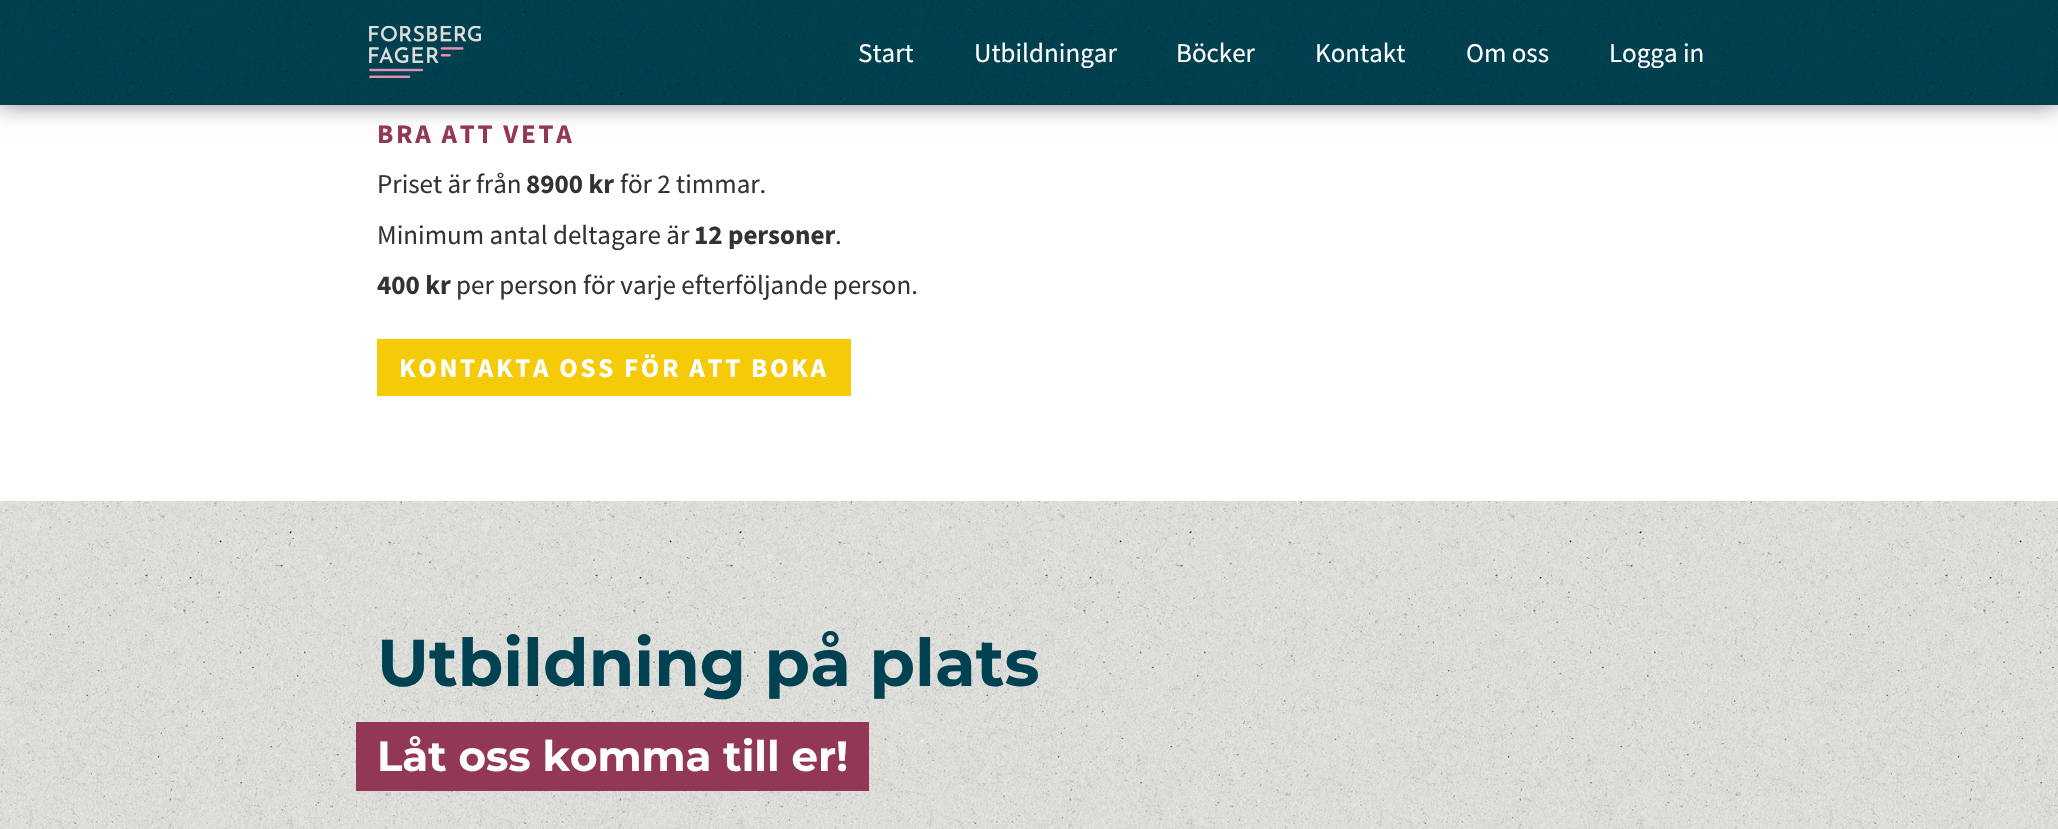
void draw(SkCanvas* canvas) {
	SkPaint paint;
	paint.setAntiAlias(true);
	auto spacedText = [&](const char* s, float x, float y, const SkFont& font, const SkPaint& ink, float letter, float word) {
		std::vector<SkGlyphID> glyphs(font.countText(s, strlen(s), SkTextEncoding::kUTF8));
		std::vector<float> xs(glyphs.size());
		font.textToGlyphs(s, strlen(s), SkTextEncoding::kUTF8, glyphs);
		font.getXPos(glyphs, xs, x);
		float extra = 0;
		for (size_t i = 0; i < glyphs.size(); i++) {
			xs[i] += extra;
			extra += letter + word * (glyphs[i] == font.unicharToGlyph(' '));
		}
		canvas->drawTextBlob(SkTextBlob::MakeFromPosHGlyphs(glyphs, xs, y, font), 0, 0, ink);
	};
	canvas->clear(0xffffffff);
	paint.setColor(0x7d000000);
	paint.setMaskFilter(SkMaskFilter::MakeBlur(kNormal_SkBlurStyle, 11));
	canvas->drawRect(SkRect::MakeXYWH(0, 0, 2058, 105), paint);
	paint.setMaskFilter(nullptr);
	canvas->drawImageRect(SkImages::DeferredFromEncodedData(SkData::MakeFromFileName("img1.png")), SkRect::MakeXYWH(0, 0, 2058, 105), SkSamplingOptions());
	canvas->drawImageRect(SkImages::DeferredFromEncodedData(SkData::MakeFromFileName("img2.png")), SkRect::MakeXYWH(369, 26, 112, 52), SkSamplingOptions());
	SkFont f1(fontMgr->matchFamilyStyle("Source Sans Pro", SkFontStyle::Normal()), 27);
	f1.setSubpixel(true);
	paint.setColor(0xffffffff);
	canvas->drawString("Start", 858, 62, f1, paint);
	canvas->drawString("Utbildningar", 974, 62, f1, paint);
	canvas->drawString("Böcker", 1176, 62, f1, paint);
	canvas->drawString("Kontakt", 1315, 62, f1, paint);
	canvas->drawString("Om oss", 1466, 62, f1, paint);
	canvas->drawString("Logga in", 1609, 62, f1, paint);
	SkFont f2(fontMgr->matchFamilyStyle("Source Sans Pro", SkFontStyle::Bold()), 27);
	f2.setSubpixel(true);
	paint.setColor(0xff923756);
	spacedText("BRA ATT VETA", 377, 143, f2, paint, 2.7, 0);
	paint.setColor(0xff333333);
	canvas->drawString("Priset är från", 377, 193, f1, paint);
	canvas->drawString("8900 kr", 526, 193, f2, paint);
	canvas->drawString("för 2 timmar.", 620, 193, f1, paint);
	canvas->drawString("Minimum antal deltagare är", 377, 244, f1, paint);
	canvas->drawString("12 personer", 694, 244, f2, paint);
	canvas->drawString(".", 835, 244, f1, paint);
	canvas->drawString("400 kr", 377, 294, f2, paint);
	canvas->drawString("per person för varje efterföljande person.", 456, 294, f1, paint);
	paint.setColor(0xfff5cb08);
	canvas->drawRect(SkRect::MakeXYWH(377, 339, 474, 57), paint);
	paint.setColor(0xffffffff);
	spacedText("KONTAKTA OSS FÖR ATT BOKA", 399, 377, f2, paint, 2.7, 0);
	canvas->drawImageRect(SkImages::DeferredFromEncodedData(SkData::MakeFromFileName("img3.png")), SkRect::MakeXYWH(0, 501, 2058, 328), SkSamplingOptions());
	SkFont f3(fontMgr->matchFamilyStyle("Montserrat", SkFontStyle::Bold()), 66);
	f3.setSubpixel(true);
	paint.setColor(0xff004252);
	canvas->drawString("Utbildning på plats", 377, 686, f3, paint);
	paint.setColor(0xff923756);
	canvas->drawRect(SkRect::MakeXYWH(356, 722, 513, 69), paint);
	SkFont f4(fontMgr->matchFamilyStyle("Montserrat", SkFontStyle::Bold()), 42);
	f4.setSubpixel(true);
	paint.setColor(0xffffffff);
	canvas->drawString("Låt oss komma till er!", 377, 771, f4, paint);
}
